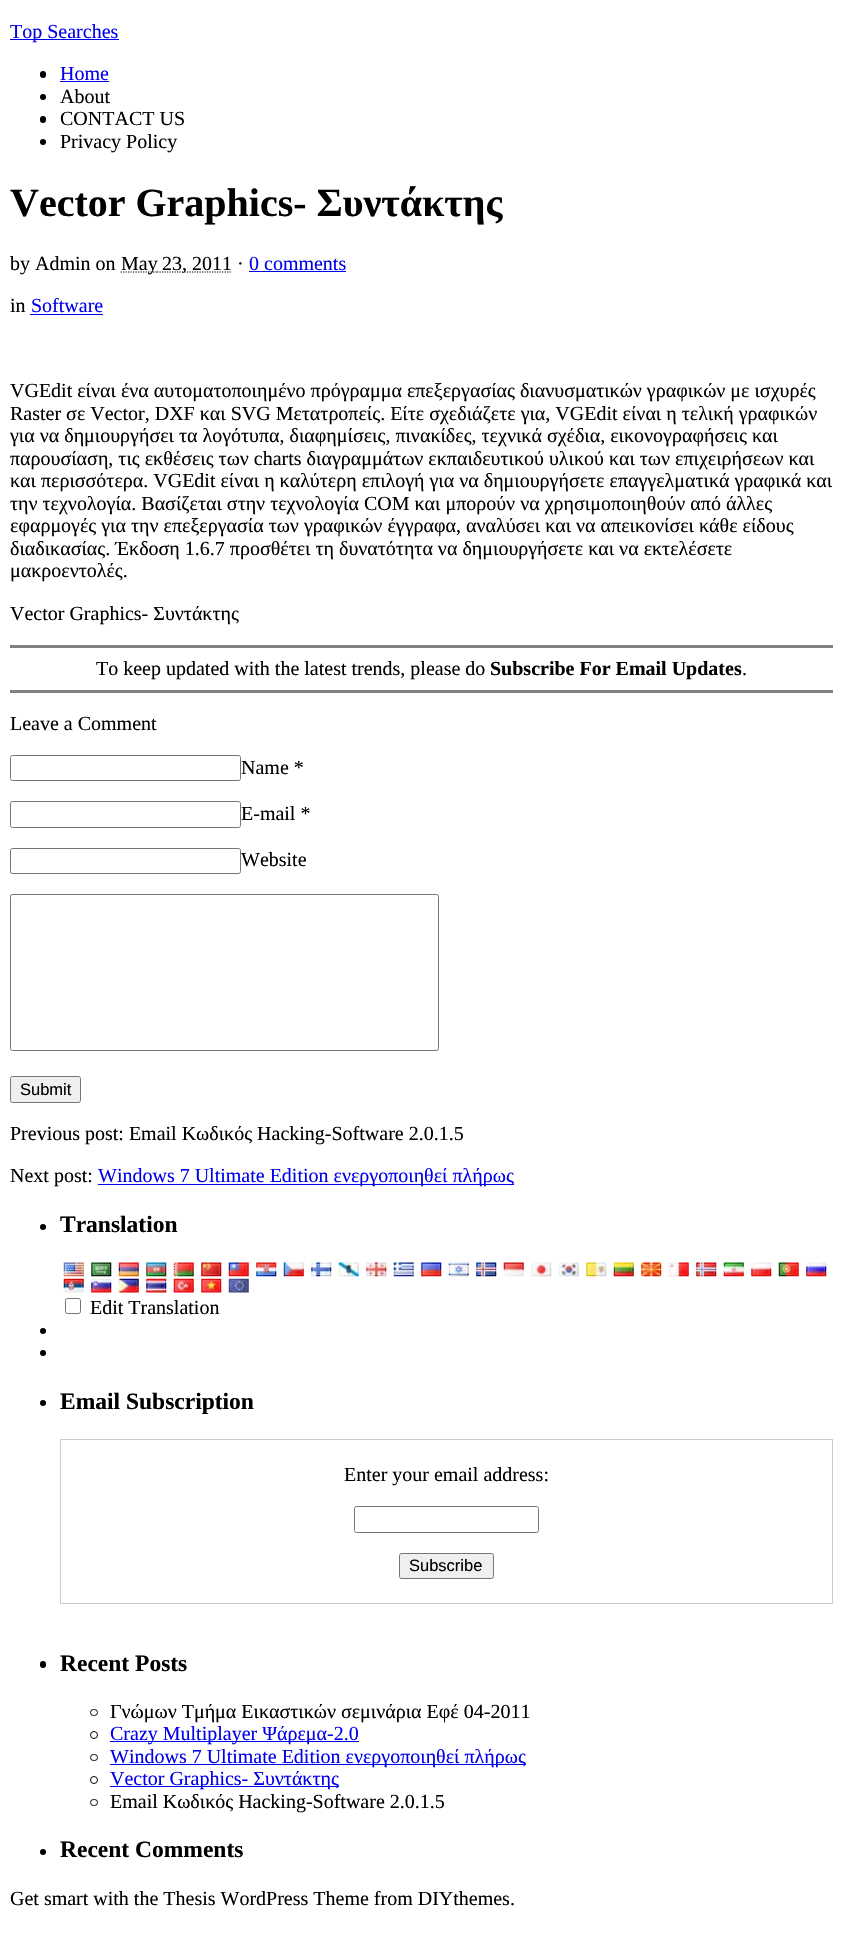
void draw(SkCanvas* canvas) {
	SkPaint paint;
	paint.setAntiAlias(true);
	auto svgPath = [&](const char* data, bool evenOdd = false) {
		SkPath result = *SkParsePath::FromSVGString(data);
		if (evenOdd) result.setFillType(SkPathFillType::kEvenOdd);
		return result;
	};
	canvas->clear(0xffffffff);
	paint.setColor(0xff0000ee);
	canvas->drawRect(SkRect::MakeXYWH(10, 39, 109, 1), paint);
	SkFont f1(fontMgr->matchFamilyStyle("Liberation Serif", SkFontStyle::Normal()), 20);
	f1.setSubpixel(true);
	canvas->drawString("Top Searches", 10, 38, f1, paint);
	paint.setColor(0xff000000);
	canvas->drawRoundRect(SkRect::MakeXYWH(40, 71, 6, 7), 3, 3, paint);
	paint.setColor(0xff0000ee);
	canvas->drawString("Home", 60, 80, f1, paint);
	canvas->drawRect(SkRect::MakeXYWH(60, 81, 49, 1), paint);
	paint.setColor(0xff000000);
	canvas->drawCircle(43, 97, 3, paint);
	canvas->drawString("About", 60, 103, f1, paint);
	canvas->drawRoundRect(SkRect::MakeXYWH(40, 116, 6, 7), 3, 3, paint);
	canvas->drawString("CONTACT US", 60, 125, f1, paint);
	canvas->drawCircle(43, 142, 3, paint);
	canvas->drawString("Privacy Policy", 60, 148, f1, paint);
	SkFont f2(fontMgr->matchFamilyStyle("Liberation Serif", SkFontStyle::Bold()), 40);
	f2.setSubpixel(true);
	canvas->drawString("Vector Graphics- Συντάκτης", 10, 216, f2, paint);
	canvas->drawString("by Admin on", 10, 270, f1, paint);
	paint.setStroke(true);
	paint.setStrokeWidth(1.2);
	paint.setPathEffect(SkDashPathEffect::Make({{1.25f, 1.25f}}, 0));
	canvas->drawPath(svgPath("M120.5 272H157"), paint);
	paint.setPathEffect(nullptr);
	paint.setStroke(false);
	canvas->drawString("May", 121, 270, f1, paint);
	paint.setStroke(true);
	paint.setPathEffect(SkDashPathEffect::Make({{1.25f, 1.25f}}, 0));
	canvas->drawPath(svgPath("M157 272H232"), paint);
	paint.setPathEffect(nullptr);
	paint.setStroke(false);
	canvas->drawString("23, 2011 ·", 162, 270, f1, paint);
	paint.setColor(0xff0000ee);
	canvas->drawString("0 comments", 249, 270, f1, paint);
	canvas->drawRect(SkRect::MakeXYWH(249, 271, 97, 1), paint);
	paint.setColor(0xff000000);
	canvas->drawString("in", 10, 312, f1, paint);
	paint.setColor(0xff0000ee);
	canvas->drawString("Software", 31, 312, f1, paint);
	canvas->drawRect(SkRect::MakeXYWH(30, 314, 73, 1), paint);
	paint.setColor(0xff000000);
	canvas->drawString("VGEdit είναι ένα αυτοματοποιημένο πρόγραμμα επεξεργασίας διανυσματικών γραφικών με ισχυρές", 10, 397, f1, paint);
	canvas->drawString("Raster σε Vector, DXF και SVG Μετατροπείς. Είτε σχεδιάζετε για, VGEdit είναι η τελική γραφικών", 10, 420, f1, paint);
	canvas->drawString("για να δημιουργήσει τα λογότυπα, διαφημίσεις, πινακίδες, τεχνικά σχέδια, εικονογραφήσεις και", 10, 442, f1, paint);
	canvas->drawString("παρουσίαση, τις εκθέσεις των charts διαγραμμάτων εκπαιδευτικού υλικού και των επιχειρήσεων και", 10, 465, f1, paint);
	canvas->drawString("και περισσότερα. VGEdit είναι η καλύτερη επιλογή για να δημιουργήσετε επαγγελματικά γραφικά και", 10, 487, f1, paint);
	canvas->drawString("την τεχνολογία. Βασίζεται στην τεχνολογία COM και μπορούν να χρησιμοποιηθούν από άλλες", 10, 510, f1, paint);
	canvas->drawString("εφαρμογές για την επεξεργασία των γραφικών έγγραφα, αναλύσει και να απεικονίσει κάθε είδους", 10, 532, f1, paint);
	canvas->drawString("διαδικασίας. Έκδοση 1.6.7 προσθέτει τη δυνατότητα να δημιουργήσετε και να εκτελέσετε", 10, 555, f1, paint);
	canvas->drawString("μακροεντολές.", 10, 577, f1, paint);
	canvas->drawString("Vector Graphics- Συντάκτης", 10, 620, f1, paint);
	paint.setColor(0xff808080);
	canvas->drawRect(SkRect::MakeXYWH(10, 645, 823, 3), paint);
	paint.setColor(0xff000000);
	canvas->drawString("To keep updated with the latest trends, please do", 96, 675, f1, paint);
	SkFont f3(fontMgr->matchFamilyStyle("Liberation Serif", SkFontStyle::Bold()), 20);
	f3.setSubpixel(true);
	canvas->drawString("Subscribe For Email Updates", 490, 675, f3, paint);
	canvas->drawString(".", 742, 675, f1, paint);
	paint.setColor(0xff808080);
	canvas->drawRect(SkRect::MakeXYWH(10, 690, 823, 3), paint);
	paint.setColor(0xff000000);
	canvas->drawString("Leave a Comment", 10, 730, f1, paint);
	paint.setStroke(true);
	paint.setStrokeWidth(1);
	paint.setColor(0xff767676);
	canvas->drawRoundRect(SkRect::MakeXYWH(10.5, 755.5, 230, 25), 2, 2, paint);
	paint.setStroke(false);
	paint.setColor(0xff000000);
	canvas->drawString("Name *", 241, 774, f1, paint);
	paint.setStroke(true);
	paint.setColor(0xff767676);
	canvas->drawRoundRect(SkRect::MakeXYWH(10.5, 801.5, 230, 26), 2, 2, paint);
	paint.setStroke(false);
	paint.setColor(0xff000000);
	canvas->drawString("E-mail *", 241, 820, f1, paint);
	paint.setStroke(true);
	paint.setColor(0xff767676);
	canvas->drawRoundRect(SkRect::MakeXYWH(10.5, 848.5, 230, 25), 2, 2, paint);
	paint.setStroke(false);
	paint.setColor(0xff000000);
	canvas->drawString("Website", 241, 866, f1, paint);
	paint.setStroke(true);
	paint.setColor(0xff767676);
	canvas->drawRoundRect(SkRect::MakeXYWH(10.5, 894.5, 428, 156), 2, 2, paint);
	paint.setStroke(false);
	paint.setColor(0xffefefef);
	canvas->drawRoundRect(SkRect::MakeXYWH(10.5, 1076.5, 70, 26), 2, 2, paint);
	paint.setStroke(true);
	paint.setColor(0xff767676);
	canvas->drawRoundRect(SkRect::MakeXYWH(10.5, 1076.5, 70, 26), 2, 2, paint);
	SkFont f4(fontMgr->matchFamilyStyle("Liberation Sans", SkFontStyle::Normal()), 16.5);
	f4.setSubpixel(true);
	paint.setStroke(false);
	paint.setColor(0xff000000);
	canvas->drawString("Submit", 20, 1095, f4, paint);
	canvas->drawString("Previous post: Email Κωδικός Hacking-Software 2.0.1.5", 10, 1140, f1, paint);
	canvas->drawString("Next post:", 10, 1182, f1, paint);
	paint.setColor(0xff0000ee);
	canvas->drawRect(SkRect::MakeXYWH(98, 1184, 416, 1), paint);
	canvas->drawString("Windows 7 Ultimate Edition ενεργοποιηθεί πλήρως", 98, 1182, f1, paint);
	paint.setColor(0xff000000);
	canvas->drawCircle(43, 1227, 3, paint);
	SkFont f5(fontMgr->matchFamilyStyle("Liberation Serif", SkFontStyle::Bold()), 23.5);
	f5.setSubpixel(true);
	canvas->drawString("Translation", 60, 1232, f5, paint);
	canvas->drawImageRect(SkImages::DeferredFromEncodedData(SkData::MakeFromFileName("img1.png")), SkRect::MakeXYWH(63, 1262, 21, 15), SkSamplingOptions());
	canvas->drawImageRect(SkImages::DeferredFromEncodedData(SkData::MakeFromFileName("img2.png")), SkRect::MakeXYWH(91, 1262, 21, 15), SkSamplingOptions());
	canvas->drawImageRect(SkImages::DeferredFromEncodedData(SkData::MakeFromFileName("img3.png")), SkRect::MakeXYWH(118, 1262, 21, 15), SkSamplingOptions());
	canvas->drawImageRect(SkImages::DeferredFromEncodedData(SkData::MakeFromFileName("img4.png")), SkRect::MakeXYWH(146, 1262, 21, 15), SkSamplingOptions());
	canvas->drawImageRect(SkImages::DeferredFromEncodedData(SkData::MakeFromFileName("img5.png")), SkRect::MakeXYWH(173, 1262, 21, 15), SkSamplingOptions());
	canvas->drawImageRect(SkImages::DeferredFromEncodedData(SkData::MakeFromFileName("img6.png")), SkRect::MakeXYWH(201, 1262, 21, 15), SkSamplingOptions());
	canvas->drawImageRect(SkImages::DeferredFromEncodedData(SkData::MakeFromFileName("img7.png")), SkRect::MakeXYWH(228, 1262, 21, 15), SkSamplingOptions());
	canvas->drawImageRect(SkImages::DeferredFromEncodedData(SkData::MakeFromFileName("img8.png")), SkRect::MakeXYWH(256, 1262, 21, 15), SkSamplingOptions());
	canvas->drawImageRect(SkImages::DeferredFromEncodedData(SkData::MakeFromFileName("img9.png")), SkRect::MakeXYWH(283, 1262, 21, 15), SkSamplingOptions());
	canvas->drawImageRect(SkImages::DeferredFromEncodedData(SkData::MakeFromFileName("img10.png")), SkRect::MakeXYWH(311, 1262, 21, 15), SkSamplingOptions());
	canvas->drawImageRect(SkImages::DeferredFromEncodedData(SkData::MakeFromFileName("img11.png")), SkRect::MakeXYWH(338, 1262, 21, 15), SkSamplingOptions());
	canvas->drawImageRect(SkImages::DeferredFromEncodedData(SkData::MakeFromFileName("img12.png")), SkRect::MakeXYWH(366, 1262, 21, 15), SkSamplingOptions());
	canvas->drawImageRect(SkImages::DeferredFromEncodedData(SkData::MakeFromFileName("img13.png")), SkRect::MakeXYWH(393, 1262, 21, 15), SkSamplingOptions());
	canvas->drawImageRect(SkImages::DeferredFromEncodedData(SkData::MakeFromFileName("img14.png")), SkRect::MakeXYWH(421, 1262, 21, 15), SkSamplingOptions());
	canvas->drawImageRect(SkImages::DeferredFromEncodedData(SkData::MakeFromFileName("img15.png")), SkRect::MakeXYWH(448, 1262, 21, 15), SkSamplingOptions());
	canvas->drawImageRect(SkImages::DeferredFromEncodedData(SkData::MakeFromFileName("img16.png")), SkRect::MakeXYWH(476, 1262, 21, 15), SkSamplingOptions());
	canvas->drawImageRect(SkImages::DeferredFromEncodedData(SkData::MakeFromFileName("img17.png")), SkRect::MakeXYWH(503, 1262, 21, 15), SkSamplingOptions());
	canvas->drawImageRect(SkImages::DeferredFromEncodedData(SkData::MakeFromFileName("img18.png")), SkRect::MakeXYWH(531, 1262, 21, 15), SkSamplingOptions());
	canvas->drawImageRect(SkImages::DeferredFromEncodedData(SkData::MakeFromFileName("img19.png")), SkRect::MakeXYWH(558, 1262, 21, 15), SkSamplingOptions());
	canvas->drawImageRect(SkImages::DeferredFromEncodedData(SkData::MakeFromFileName("img20.png")), SkRect::MakeXYWH(586, 1262, 21, 15), SkSamplingOptions());
	canvas->drawImageRect(SkImages::DeferredFromEncodedData(SkData::MakeFromFileName("img21.png")), SkRect::MakeXYWH(613, 1262, 21, 15), SkSamplingOptions());
	canvas->drawImageRect(SkImages::DeferredFromEncodedData(SkData::MakeFromFileName("img22.png")), SkRect::MakeXYWH(641, 1262, 21, 15), SkSamplingOptions());
	canvas->drawImageRect(SkImages::DeferredFromEncodedData(SkData::MakeFromFileName("img23.png")), SkRect::MakeXYWH(668, 1262, 21, 15), SkSamplingOptions());
	canvas->drawImageRect(SkImages::DeferredFromEncodedData(SkData::MakeFromFileName("img24.png")), SkRect::MakeXYWH(696, 1262, 21, 15), SkSamplingOptions());
	canvas->drawImageRect(SkImages::DeferredFromEncodedData(SkData::MakeFromFileName("img25.png")), SkRect::MakeXYWH(723, 1262, 21, 15), SkSamplingOptions());
	canvas->drawImageRect(SkImages::DeferredFromEncodedData(SkData::MakeFromFileName("img26.png")), SkRect::MakeXYWH(751, 1262, 21, 15), SkSamplingOptions());
	canvas->drawImageRect(SkImages::DeferredFromEncodedData(SkData::MakeFromFileName("img27.png")), SkRect::MakeXYWH(778, 1262, 21, 15), SkSamplingOptions());
	canvas->drawImageRect(SkImages::DeferredFromEncodedData(SkData::MakeFromFileName("img28.png")), SkRect::MakeXYWH(806, 1262, 21, 15), SkSamplingOptions());
	canvas->drawImageRect(SkImages::DeferredFromEncodedData(SkData::MakeFromFileName("img29.png")), SkRect::MakeXYWH(63, 1278, 21, 15), SkSamplingOptions());
	canvas->drawImageRect(SkImages::DeferredFromEncodedData(SkData::MakeFromFileName("img30.png")), SkRect::MakeXYWH(91, 1278, 21, 15), SkSamplingOptions());
	canvas->drawImageRect(SkImages::DeferredFromEncodedData(SkData::MakeFromFileName("img31.png")), SkRect::MakeXYWH(118, 1278, 21, 15), SkSamplingOptions());
	canvas->drawImageRect(SkImages::DeferredFromEncodedData(SkData::MakeFromFileName("img32.png")), SkRect::MakeXYWH(146, 1278, 21, 15), SkSamplingOptions());
	canvas->drawImageRect(SkImages::DeferredFromEncodedData(SkData::MakeFromFileName("img33.png")), SkRect::MakeXYWH(173, 1278, 21, 15), SkSamplingOptions());
	canvas->drawImageRect(SkImages::DeferredFromEncodedData(SkData::MakeFromFileName("img34.png")), SkRect::MakeXYWH(201, 1278, 21, 15), SkSamplingOptions());
	canvas->drawImageRect(SkImages::DeferredFromEncodedData(SkData::MakeFromFileName("img35.png")), SkRect::MakeXYWH(228, 1278, 21, 15), SkSamplingOptions());
	paint.setStroke(true);
	paint.setColor(0xff767676);
	canvas->drawRoundRect(SkRect::MakeXYWH(65.5, 1298.5, 15, 15), 2, 2, paint);
	paint.setStroke(false);
	paint.setColor(0xff000000);
	canvas->drawString("Edit Translation", 90, 1314, f1, paint);
	canvas->drawCircle(43, 1331, 3, paint);
	canvas->drawCircle(43, 1353, 3, paint);
	canvas->drawCircle(43, 1403, 3, paint);
	canvas->drawString("Email Subscription", 60, 1409, f5, paint);
	paint.setStroke(true);
	paint.setColor(0xffcccccc);
	canvas->drawRect(SkRect::MakeXYWH(60.5, 1439.5, 772, 164), paint);
	paint.setStroke(false);
	paint.setColor(0xff000000);
	canvas->drawString("Enter your email address:", 344, 1481, f1, paint);
	paint.setStroke(true);
	paint.setColor(0xff767676);
	canvas->drawRoundRect(SkRect::MakeXYWH(354.5, 1506.5, 184, 26), 2, 2, paint);
	paint.setStroke(false);
	paint.setColor(0xffefefef);
	canvas->drawRoundRect(SkRect::MakeXYWH(399.5, 1553.5, 94, 25), 2, 2, paint);
	paint.setStroke(true);
	paint.setColor(0xff767676);
	canvas->drawRoundRect(SkRect::MakeXYWH(399.5, 1553.5, 94, 25), 2, 2, paint);
	paint.setStroke(false);
	paint.setColor(0xff000000);
	canvas->drawString("Subscribe", 409, 1571, f4, paint);
	canvas->drawRoundRect(SkRect::MakeXYWH(40, 1661, 6, 7), 3, 3, paint);
	canvas->drawString("Recent Posts", 60, 1671, f5, paint);
	paint.setStroke(true);
	canvas->drawRoundRect(SkRect::MakeXYWH(90.5, 1709.5, 7, 6), 3, 3, paint);
	paint.setStroke(false);
	canvas->drawString("Γνώμων Τμήμα Εικαστικών σεμινάρια Εφέ 04-2011", 110, 1718, f1, paint);
	paint.setStroke(true);
	canvas->drawCircle(94, 1735, 3.5, paint);
	paint.setStroke(false);
	paint.setColor(0xff0000ee);
	canvas->drawRect(SkRect::MakeXYWH(110, 1741, 249, 1), paint);
	canvas->drawString("Crazy Multiplayer Ψάρεμα-2.0", 110, 1740, f1, paint);
	paint.setStroke(true);
	paint.setColor(0xff000000);
	canvas->drawRoundRect(SkRect::MakeXYWH(90.5, 1754.5, 7, 6), 3, 3, paint);
	paint.setStroke(false);
	paint.setColor(0xff0000ee);
	canvas->drawRect(SkRect::MakeXYWH(110, 1764, 416, 1), paint);
	canvas->drawString("Windows 7 Ultimate Edition ενεργοποιηθεί πλήρως", 110, 1763, f1, paint);
	paint.setStroke(true);
	paint.setColor(0xff000000);
	canvas->drawCircle(94, 1780, 3.5, paint);
	paint.setStroke(false);
	paint.setColor(0xff0000ee);
	canvas->drawRect(SkRect::MakeXYWH(110, 1786, 229, 1), paint);
	canvas->drawString("Vector Graphics- Συντάκτης", 110, 1785, f1, paint);
	paint.setStroke(true);
	paint.setColor(0xff000000);
	canvas->drawRoundRect(SkRect::MakeXYWH(90.5, 1799.5, 7, 6), 3, 3, paint);
	paint.setStroke(false);
	canvas->drawString("Email Κωδικός Hacking-Software 2.0.1.5", 110, 1808, f1, paint);
	canvas->drawCircle(43, 1852, 3, paint);
	canvas->drawString("Recent Comments", 60, 1857, f5, paint);
	canvas->drawString("Get smart with the Thesis WordPress Theme from DIYthemes.", 10, 1905, f1, paint);
}
